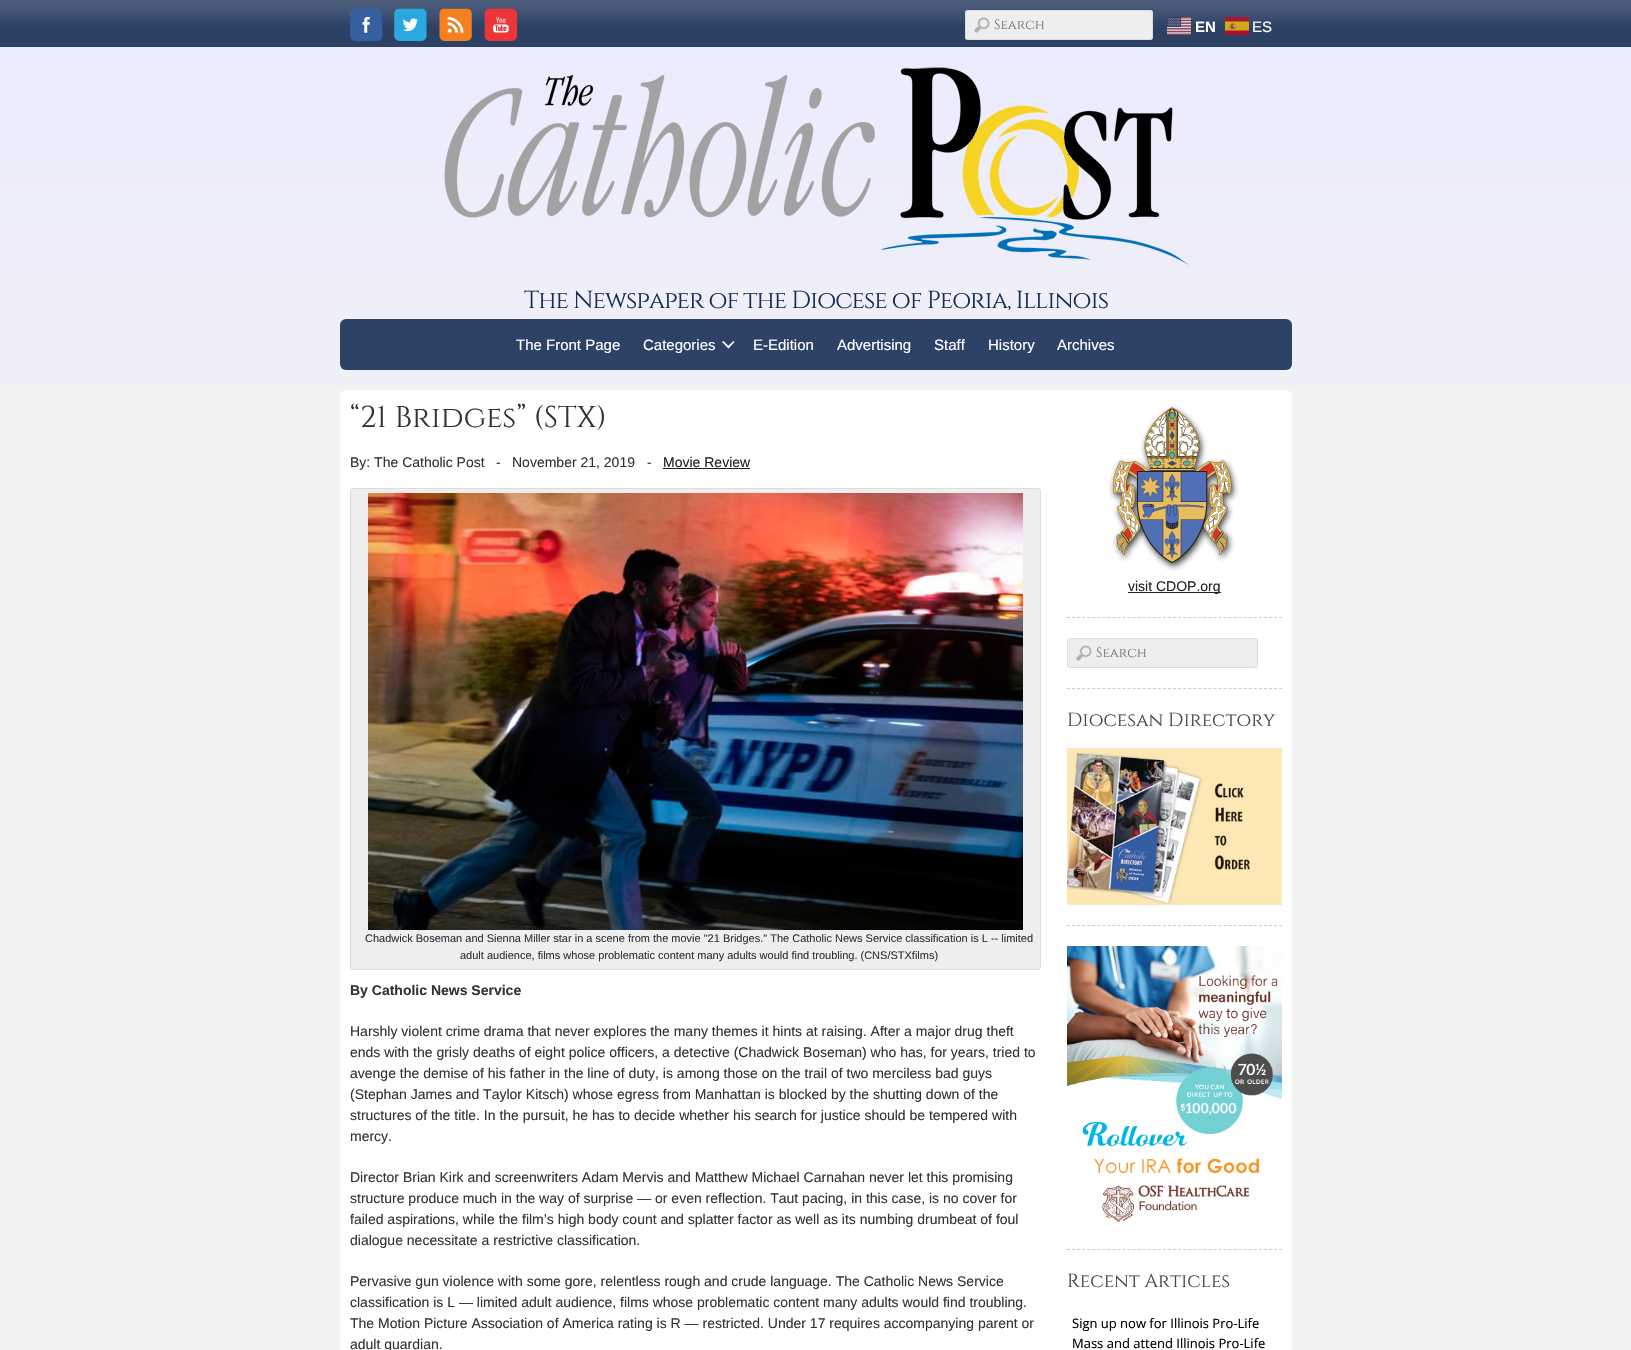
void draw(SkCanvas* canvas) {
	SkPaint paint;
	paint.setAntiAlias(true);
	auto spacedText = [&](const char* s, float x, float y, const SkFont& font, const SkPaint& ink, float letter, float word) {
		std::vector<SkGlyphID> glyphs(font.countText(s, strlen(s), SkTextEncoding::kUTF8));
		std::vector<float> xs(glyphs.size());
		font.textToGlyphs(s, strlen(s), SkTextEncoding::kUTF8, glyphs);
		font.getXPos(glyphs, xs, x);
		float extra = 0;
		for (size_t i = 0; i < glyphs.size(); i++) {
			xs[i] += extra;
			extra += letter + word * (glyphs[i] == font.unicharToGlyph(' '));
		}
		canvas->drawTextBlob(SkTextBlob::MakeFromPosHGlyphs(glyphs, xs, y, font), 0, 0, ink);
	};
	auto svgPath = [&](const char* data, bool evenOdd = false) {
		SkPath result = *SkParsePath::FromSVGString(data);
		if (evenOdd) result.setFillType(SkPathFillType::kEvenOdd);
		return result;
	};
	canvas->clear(0xfff2f2f2);
	canvas->drawImageRect(SkImages::DeferredFromEncodedData(SkData::MakeFromFileName("img1.png")), SkRect::MakeXYWH(0, 47, 1631, 338), SkSamplingOptions());
	paint.setColor(0xff2d4165);
	canvas->drawRect(SkRect::MakeXYWH(0, 0, 1631, 47), paint);
	canvas->drawImageRect(SkImages::DeferredFromEncodedData(SkData::MakeFromFileName("img2.png")), SkRect::MakeXYWH(0, 0, 1631, 25), SkSamplingOptions());
	canvas->drawImageRect(SkImages::DeferredFromEncodedData(SkData::MakeFromFileName("img3.png")), SkRect::MakeXYWH(350, 8, 33, 33), SkSamplingOptions());
	canvas->drawImageRect(SkImages::DeferredFromEncodedData(SkData::MakeFromFileName("img4.png")), SkRect::MakeXYWH(394, 8, 33, 33), SkSamplingOptions());
	canvas->drawImageRect(SkImages::DeferredFromEncodedData(SkData::MakeFromFileName("img5.png")), SkRect::MakeXYWH(439, 8, 33, 33), SkSamplingOptions());
	canvas->drawImageRect(SkImages::DeferredFromEncodedData(SkData::MakeFromFileName("img6.png")), SkRect::MakeXYWH(484, 8, 33, 33), SkSamplingOptions());
	paint.setColor(0xffeeeeee);
	canvas->drawRoundRect(SkRect::MakeXYWH(965, 10, 188, 30), 3, 3, paint);
	canvas->drawImageRect(SkImages::DeferredFromEncodedData(SkData::MakeFromFileName("img7.png")), SkRect::MakeXYWH(974, 17, 16, 16), SkSamplingOptions());
	paint.setStroke(true);
	paint.setStrokeWidth(1);
	paint.setColor(0xffdddddd);
	canvas->drawRoundRect(SkRect::MakeXYWH(965.5, 10.5, 187, 29), 2.5, 2.5, paint);
	SkFont f1(fontMgr->matchFamilyStyle("Cinzel", SkFontStyle::Normal()), 13.5);
	f1.setSubpixel(true);
	paint.setStroke(false);
	paint.setColor(0xff757575);
	canvas->drawString("Search", 994, 29, f1, paint);
	canvas->drawImageRect(SkImages::DeferredFromEncodedData(SkData::MakeFromFileName("img8.png")), SkRect::MakeXYWH(1167, 17, 24, 18), SkSamplingOptions());
	SkFont f2(fontMgr->matchFamilyStyle("Liberation Sans", SkFontStyle::Bold()), 15);
	f2.setSubpixel(true);
	paint.setColor(0xffffffff);
	canvas->drawString("EN", 1195, 32, f2, paint);
	canvas->drawImageRect(SkImages::DeferredFromEncodedData(SkData::MakeFromFileName("img9.png")), SkRect::MakeXYWH(1225, 17, 24, 18), SkSamplingOptions());
	SkFont f3(fontMgr->matchFamilyStyle("Liberation Sans", SkFontStyle::Normal()), 15);
	f3.setSubpixel(true);
	canvas->drawString("ES", 1252, 32, f3, paint);
	canvas->drawImageRect(SkImages::DeferredFromEncodedData(SkData::MakeFromFileName("img10.png")), SkRect::MakeXYWH(444, 67, 744, 198), SkSamplingOptions());
	SkFont f4(fontMgr->matchFamilyStyle("Cinzel", SkFontStyle::Normal()), 24.5);
	f4.setSubpixel(true);
	paint.setColor(0xff152c52);
	spacedText("The Newspaper of the Diocese of Peoria, Illinois", 524, 308, f4, paint, -1, 0);
	paint.setColor(0xff2d4266);
	canvas->drawRoundRect(SkRect::MakeXYWH(340, 319, 952, 51), 6, 6, paint);
	paint.setColor(0xffffffff);
	canvas->drawString("The Front Page", 516, 350, f3, paint);
	canvas->drawString("Categories", 643, 350, f3, paint);
	canvas->drawPath(svgPath("M733.5 341L734.5 342L728.5 348.5L727 347Z"), paint);
	canvas->drawPath(svgPath("M723.5 341L729.5 347L728.5 348.5L722 342Z"), paint);
	canvas->drawString("E-Edition", 753, 350, f3, paint);
	canvas->drawString("Advertising", 837, 350, f3, paint);
	canvas->drawString("Staff", 934, 350, f3, paint);
	canvas->drawString("History", 988, 350, f3, paint);
	canvas->drawString("Archives", 1057, 350, f3, paint);
	canvas->drawRoundRect(SkRect::MakeXYWH(340, 390, 952, 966), 6, 6, paint);
	SkFont f5(fontMgr->matchFamilyStyle("Cinzel", SkFontStyle::Normal()), 30);
	f5.setSubpixel(true);
	paint.setColor(0xff333333);
	canvas->drawString("“21 Bridges” (STX)", 350, 427, f5, paint);
	SkFont f6(fontMgr->matchFamilyStyle("Liberation Sans", SkFontStyle::Normal()), 14);
	f6.setSubpixel(true);
	canvas->drawString("By: The Catholic Post", 350, 467, f6, paint);
	canvas->drawString("-", 496, 467, f6, paint);
	canvas->drawString("November 21, 2019", 512, 467, f6, paint);
	canvas->drawString("-", 647, 467, f6, paint);
	paint.setColor(0xff222222);
	canvas->drawString("Movie Review", 663, 467, f6, paint);
	canvas->drawRect(SkRect::MakeXYWH(663, 468, 87, 1), paint);
	paint.setColor(0xffeeeeee);
	canvas->drawRoundRect(SkRect::MakeXYWH(350.5, 488.5, 690, 481), 2.5, 2.5, paint);
	paint.setStroke(true);
	paint.setColor(0xffdddddd);
	canvas->drawRoundRect(SkRect::MakeXYWH(350.5, 488.5, 690, 481), 2.5, 2.5, paint);
	canvas->drawImageRect(SkImages::DeferredFromEncodedData(SkData::MakeFromFileName("img11.png")), SkRect::MakeXYWH(368, 493, 655, 437), SkSamplingOptions());
	SkFont f7(fontMgr->matchFamilyStyle("Liberation Sans", SkFontStyle::Normal()), 11);
	f7.setSubpixel(true);
	paint.setStroke(false);
	paint.setColor(0xff333333);
	canvas->drawString("Chadwick Boseman and Sienna Miller star in a scene from the movie \"21 Bridges.\" The Catholic News Service classification is L -- limited", 365, 942, f7, paint);
	canvas->drawString("adult audience, films whose problematic content many adults would find troubling. (CNS/STXfilms)", 460, 959, f7, paint);
	SkFont f8(fontMgr->matchFamilyStyle("Liberation Sans", SkFontStyle::Bold()), 14);
	f8.setSubpixel(true);
	canvas->drawString("By Catholic News Service", 350, 995, f8, paint);
	canvas->drawString("Harshly violent crime drama that never explores the many themes it hints at raising. After a major drug theft", 350, 1036, f6, paint);
	canvas->drawString("ends with the grisly deaths of eight police officers, a detective (Chadwick Boseman) who has, for years, tried to", 350, 1057, f6, paint);
	canvas->drawString("avenge the demise of his father in the line of duty, is among those on the trail of two merciless bad guys", 350, 1078, f6, paint);
	canvas->drawString("(Stephan James and Taylor Kitsch) whose egress from Manhattan is blocked by the shutting down of the", 350, 1099, f6, paint);
	canvas->drawString("structures of the title. In the pursuit, he has to decide whether his search for justice should be tempered with", 350, 1120, f6, paint);
	canvas->drawString("mercy.", 350, 1141, f6, paint);
	canvas->drawString("Director Brian Kirk and screenwriters Adam Mervis and Matthew Michael Carnahan never let this promising", 350, 1182, f6, paint);
	canvas->drawString("structure produce much in the way of surprise — or even reflection. Taut pacing, in this case, is no cover for", 350, 1203, f6, paint);
	canvas->drawString("failed aspirations, while the film’s high body count and splatter factor as well as its numbing drumbeat of foul", 350, 1224, f6, paint);
	canvas->drawString("dialogue necessitate a restrictive classification.", 350, 1245, f6, paint);
	canvas->drawString("Pervasive gun violence with some gore, relentless rough and crude language. The Catholic News Service", 350, 1286, f6, paint);
	canvas->drawString("classification is L — limited adult audience, films whose problematic content many adults would find troubling.", 350, 1307, f6, paint);
	canvas->drawString("The Motion Picture Association of America rating is R — restricted. Under 17 requires accompanying parent or", 350, 1328, f6, paint);
	canvas->drawString("adult guardian.", 350, 1349, f6, paint);
	canvas->drawImageRect(SkImages::DeferredFromEncodedData(SkData::MakeFromFileName("img12.png")), SkRect::MakeXYWH(1108, 404, 131, 169), SkSamplingOptions());
	paint.setColor(0xff222222);
	canvas->drawRect(SkRect::MakeXYWH(1128, 592, 93, 1), paint);
	canvas->drawString("visit CDOP.org", 1128, 591, f6, paint);
	paint.setStroke(true);
	paint.setColor(0xffcccccc);
	paint.setPathEffect(SkDashPathEffect::Make({{3, 2.05f}}, 0));
	canvas->drawPath(svgPath("M1067 617.5H1282"), paint);
	paint.setPathEffect(nullptr);
	paint.setStroke(false);
	paint.setColor(0xffeeeeee);
	canvas->drawRoundRect(SkRect::MakeXYWH(1067, 638, 191, 30), 3, 3, paint);
	canvas->drawImageRect(SkImages::DeferredFromEncodedData(SkData::MakeFromFileName("img7.png")), SkRect::MakeXYWH(1076, 645, 16, 16), SkSamplingOptions());
	paint.setStroke(true);
	paint.setColor(0xffdddddd);
	canvas->drawRoundRect(SkRect::MakeXYWH(1067.5, 638.5, 190, 29), 2.5, 2.5, paint);
	paint.setStroke(false);
	paint.setColor(0xff757575);
	canvas->drawString("Search", 1096, 657, f1, paint);
	paint.setStroke(true);
	paint.setColor(0xffcccccc);
	paint.setPathEffect(SkDashPathEffect::Make({{3, 2.05f}}, 0));
	canvas->drawPath(svgPath("M1067 688.5H1282"), paint);
	paint.setPathEffect(nullptr);
	SkFont f9(fontMgr->matchFamilyStyle("Cinzel", SkFontStyle::Normal()), 19);
	f9.setSubpixel(true);
	paint.setStroke(false);
	paint.setColor(0xff444444);
	canvas->drawString("Diocesan Directory", 1067, 726, f9, paint);
	canvas->drawImageRect(SkImages::DeferredFromEncodedData(SkData::MakeFromFileName("img13.png")), SkRect::MakeXYWH(1067, 748, 215, 157), SkSamplingOptions());
	paint.setStroke(true);
	paint.setColor(0xffcccccc);
	paint.setPathEffect(SkDashPathEffect::Make({{3, 2.05f}}, 0));
	canvas->drawPath(svgPath("M1067 925.5H1282"), paint);
	paint.setPathEffect(nullptr);
	canvas->drawImageRect(SkImages::DeferredFromEncodedData(SkData::MakeFromFileName("img14.png")), SkRect::MakeXYWH(1067, 946, 215, 277), SkSamplingOptions());
	paint.setPathEffect(SkDashPathEffect::Make({{3, 2.05f}}, 0));
	canvas->drawPath(svgPath("M1067 1249.5H1282"), paint);
	paint.setPathEffect(nullptr);
	paint.setStroke(false);
	paint.setColor(0xff444444);
	canvas->drawString("Recent Articles", 1067, 1287, f9, paint);
	SkFont f10(fontMgr->matchFamilyStyle("Open Sans", SkFontStyle::Normal()), 13);
	f10.setSubpixel(true);
	paint.setColor(0xff000000);
	canvas->drawString("Sign up now for Illinois Pro-Life", 1072, 1328, f10, paint);
	canvas->drawString("Mass and attend Illinois Pro-Life", 1072, 1348, f10, paint);
}
